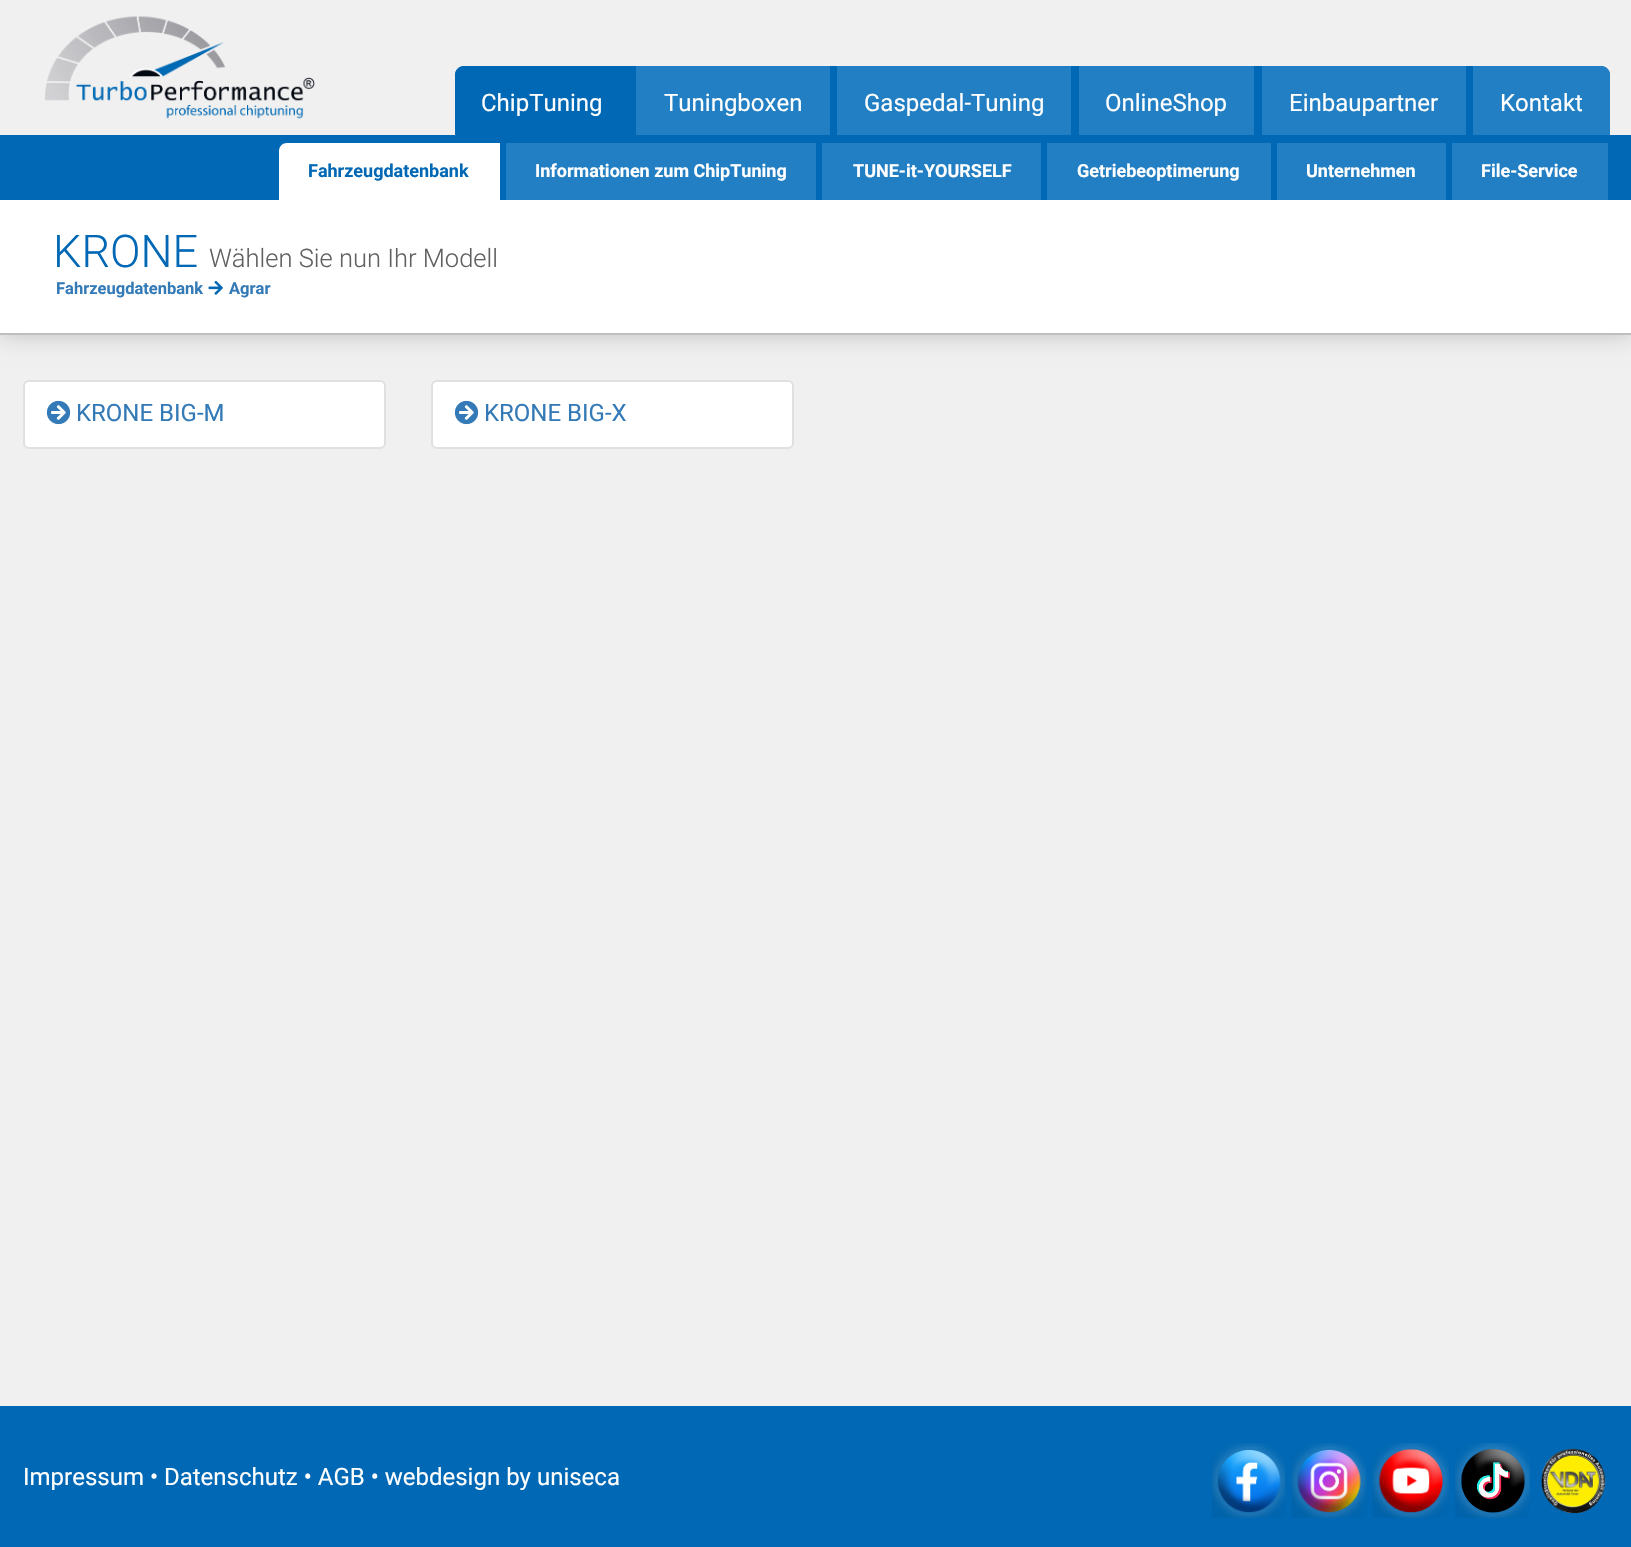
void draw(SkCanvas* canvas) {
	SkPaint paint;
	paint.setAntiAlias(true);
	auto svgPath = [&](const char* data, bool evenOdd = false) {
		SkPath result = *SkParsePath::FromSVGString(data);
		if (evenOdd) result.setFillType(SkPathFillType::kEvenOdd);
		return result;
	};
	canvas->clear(0xfff0f0f0);
	canvas->drawImageRect(SkImages::DeferredFromEncodedData(SkData::MakeFromFileName("img1.png")), SkRect::MakeXYWH(45, 16, 270, 103), SkSamplingOptions());
	paint.setColor(0xff0068b4);
	canvas->drawPath(svgPath("M464 66H1601C1606 66 1610 70 1610 75V137H455V75C455 70 459 66 464 66Z"), paint);
	canvas->drawPath(svgPath("M464 66H630V135H455V75C455 70 459 66 464 66Z"), paint);
	SkFont f1(fontMgr->matchFamilyStyle("Roboto", SkFontStyle::Normal()), 24);
	f1.setSubpixel(true);
	paint.setColor(0xffffffff);
	canvas->drawString("ChipTuning", 481, 111, f1, paint);
	paint.setColor(0xff227fc3);
	canvas->drawRect(SkRect::MakeXYWH(636, 66, 194, 69), paint);
	paint.setColor(0xffffffff);
	canvas->drawString("Tuningboxen", 664, 111, f1, paint);
	paint.setColor(0xff227fc3);
	canvas->drawRect(SkRect::MakeXYWH(837, 66, 234, 69), paint);
	paint.setColor(0xffffffff);
	canvas->drawString("Gaspedal-Tuning", 864, 111, f1, paint);
	paint.setColor(0xff227fc3);
	canvas->drawRect(SkRect::MakeXYWH(1079, 66, 175, 69), paint);
	paint.setColor(0xffffffff);
	canvas->drawString("OnlineShop", 1105, 111, f1, paint);
	paint.setColor(0xff227fc3);
	canvas->drawRect(SkRect::MakeXYWH(1262, 66, 204, 69), paint);
	paint.setColor(0xffffffff);
	canvas->drawString("Einbaupartner", 1289, 111, f1, paint);
	paint.setColor(0xff227fc3);
	canvas->drawPath(svgPath("M1473 66H1601C1606 66 1610 70 1610 75V135H1473Z"), paint);
	paint.setColor(0xffffffff);
	canvas->drawString("Kontakt", 1500, 111, f1, paint);
	paint.setColor(0x33000000);
	paint.setMaskFilter(SkMaskFilter::MakeBlur(kNormal_SkBlurStyle, 11));
	canvas->drawRect(SkRect::MakeXYWH(0, 200, 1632, 135), paint);
	paint.setMaskFilter(nullptr);
	paint.setColor(0xff0068b4);
	canvas->drawRect(SkRect::MakeXYWH(0, 135, 1631, 65), paint);
	paint.setColor(0xffffffff);
	canvas->drawPath(svgPath("M287 143H500V200H279V151C279 146.5 282.5 143 287 143Z"), paint);
	SkFont f2(fontMgr->matchFamilyStyle("Roboto", SkFontStyle::Bold()), 18);
	f2.setSubpixel(true);
	paint.setColor(0xff0068b4);
	canvas->drawString("Fahrzeugdatenbank", 308, 177, f2, paint);
	paint.setColor(0xff227fc3);
	canvas->drawRect(SkRect::MakeXYWH(506, 143, 310, 57), paint);
	paint.setColor(0xffffffff);
	canvas->drawString("Informationen zum ChipTuning", 535, 177, f2, paint);
	paint.setColor(0xff227fc3);
	canvas->drawRect(SkRect::MakeXYWH(822, 143, 219, 57), paint);
	paint.setColor(0xffffffff);
	canvas->drawString("TUNE-it-YOURSELF", 853, 177, f2, paint);
	paint.setColor(0xff227fc3);
	canvas->drawRect(SkRect::MakeXYWH(1047, 143, 224, 57), paint);
	paint.setColor(0xffffffff);
	canvas->drawString("Getriebeoptimerung", 1077, 177, f2, paint);
	paint.setColor(0xff227fc3);
	canvas->drawRect(SkRect::MakeXYWH(1277, 143, 169, 57), paint);
	paint.setColor(0xffffffff);
	canvas->drawString("Unternehmen", 1306, 177, f2, paint);
	paint.setColor(0xff227fc3);
	canvas->drawRect(SkRect::MakeXYWH(1452, 143, 156, 57), paint);
	paint.setColor(0xffffffff);
	canvas->drawString("File-Service", 1481, 177, f2, paint);
	canvas->drawRect(SkRect::MakeXYWH(0, 200, 1631, 133), paint);
	paint.setColor(0xffbebebe);
	canvas->drawRect(SkRect::MakeXYWH(0, 333, 1631, 2), paint);
	SkFont f3(fontMgr->matchFamilyStyle("Roboto", SkFontStyle(300, SkFontStyle::kNormal_Width, SkFontStyle::kUpright_Slant)), 45);
	f3.setSubpixel(true);
	paint.setColor(0xff0068b4);
	canvas->drawString("KRONE", 53, 267, f3, paint);
	SkFont f4(fontMgr->matchFamilyStyle("Roboto", SkFontStyle(300, SkFontStyle::kNormal_Width, SkFontStyle::kUpright_Slant)), 25.5);
	f4.setSubpixel(true);
	paint.setColor(0xff606060);
	canvas->drawString("Wählen Sie nun Ihr Modell", 209, 267, f4, paint);
	SkFont f5(fontMgr->matchFamilyStyle("Roboto", SkFontStyle::Bold()), 16.5);
	f5.setSubpixel(true);
	paint.setColor(0xff337ab7);
	canvas->drawString("Fahrzeugdatenbank", 56, 294, f5, paint);
	canvas->drawImageRect(SkImages::DeferredFromEncodedData(SkData::MakeFromFileName("img2.png")), SkRect::MakeXYWH(208, 280, 15, 15), SkSamplingOptions());
	canvas->drawString("Agrar", 229, 294, f5, paint);
	paint.setColor(0xffffffff);
	canvas->drawRoundRect(SkRect::MakeXYWH(23, 380, 363, 69), 6, 6, paint);
	paint.setStroke(true);
	paint.setStrokeWidth(2);
	paint.setColor(0x1f000000);
	canvas->drawRoundRect(SkRect::MakeXYWH(24, 381, 361, 67), 5, 5, paint);
	canvas->drawImageRect(SkImages::DeferredFromEncodedData(SkData::MakeFromFileName("img3.png")), SkRect::MakeXYWH(46, 400, 25, 25), SkSamplingOptions());
	paint.setStroke(false);
	paint.setColor(0xff337ab7);
	canvas->drawString("KRONE BIG-M", 76, 421, f1, paint);
	paint.setColor(0xffffffff);
	canvas->drawRoundRect(SkRect::MakeXYWH(431, 380, 363, 69), 6, 6, paint);
	paint.setStroke(true);
	paint.setColor(0x1f000000);
	canvas->drawRoundRect(SkRect::MakeXYWH(432, 381, 361, 67), 5, 5, paint);
	canvas->drawImageRect(SkImages::DeferredFromEncodedData(SkData::MakeFromFileName("img3.png")), SkRect::MakeXYWH(454, 400, 25, 25), SkSamplingOptions());
	paint.setStroke(false);
	paint.setColor(0xff337ab7);
	canvas->drawString("KRONE BIG-X", 484, 421, f1, paint);
	paint.setColor(0xff0068b4);
	canvas->drawRect(SkRect::MakeXYWH(0, 1406, 1631, 141), paint);
	paint.setColor(0xffffffff);
	canvas->drawString("Impressum • Datenschutz • AGB • webdesign by uniseca", 23, 1485, f1, paint);
	canvas->drawImageRect(SkImages::DeferredFromEncodedData(SkData::MakeFromFileName("img4.png")), SkRect::MakeXYWH(1212, 1443, 74, 75), SkSamplingOptions());
	canvas->drawImageRect(SkImages::DeferredFromEncodedData(SkData::MakeFromFileName("img5.png")), SkRect::MakeXYWH(1291, 1443, 76, 75), SkSamplingOptions());
	canvas->drawImageRect(SkImages::DeferredFromEncodedData(SkData::MakeFromFileName("img6.png")), SkRect::MakeXYWH(1372, 1443, 77, 75), SkSamplingOptions());
	canvas->drawImageRect(SkImages::DeferredFromEncodedData(SkData::MakeFromFileName("img7.png")), SkRect::MakeXYWH(1455, 1443, 75, 75), SkSamplingOptions());
	canvas->drawImageRect(SkImages::DeferredFromEncodedData(SkData::MakeFromFileName("img8.png")), SkRect::MakeXYWH(1540, 1448, 66, 66), SkSamplingOptions());
}
